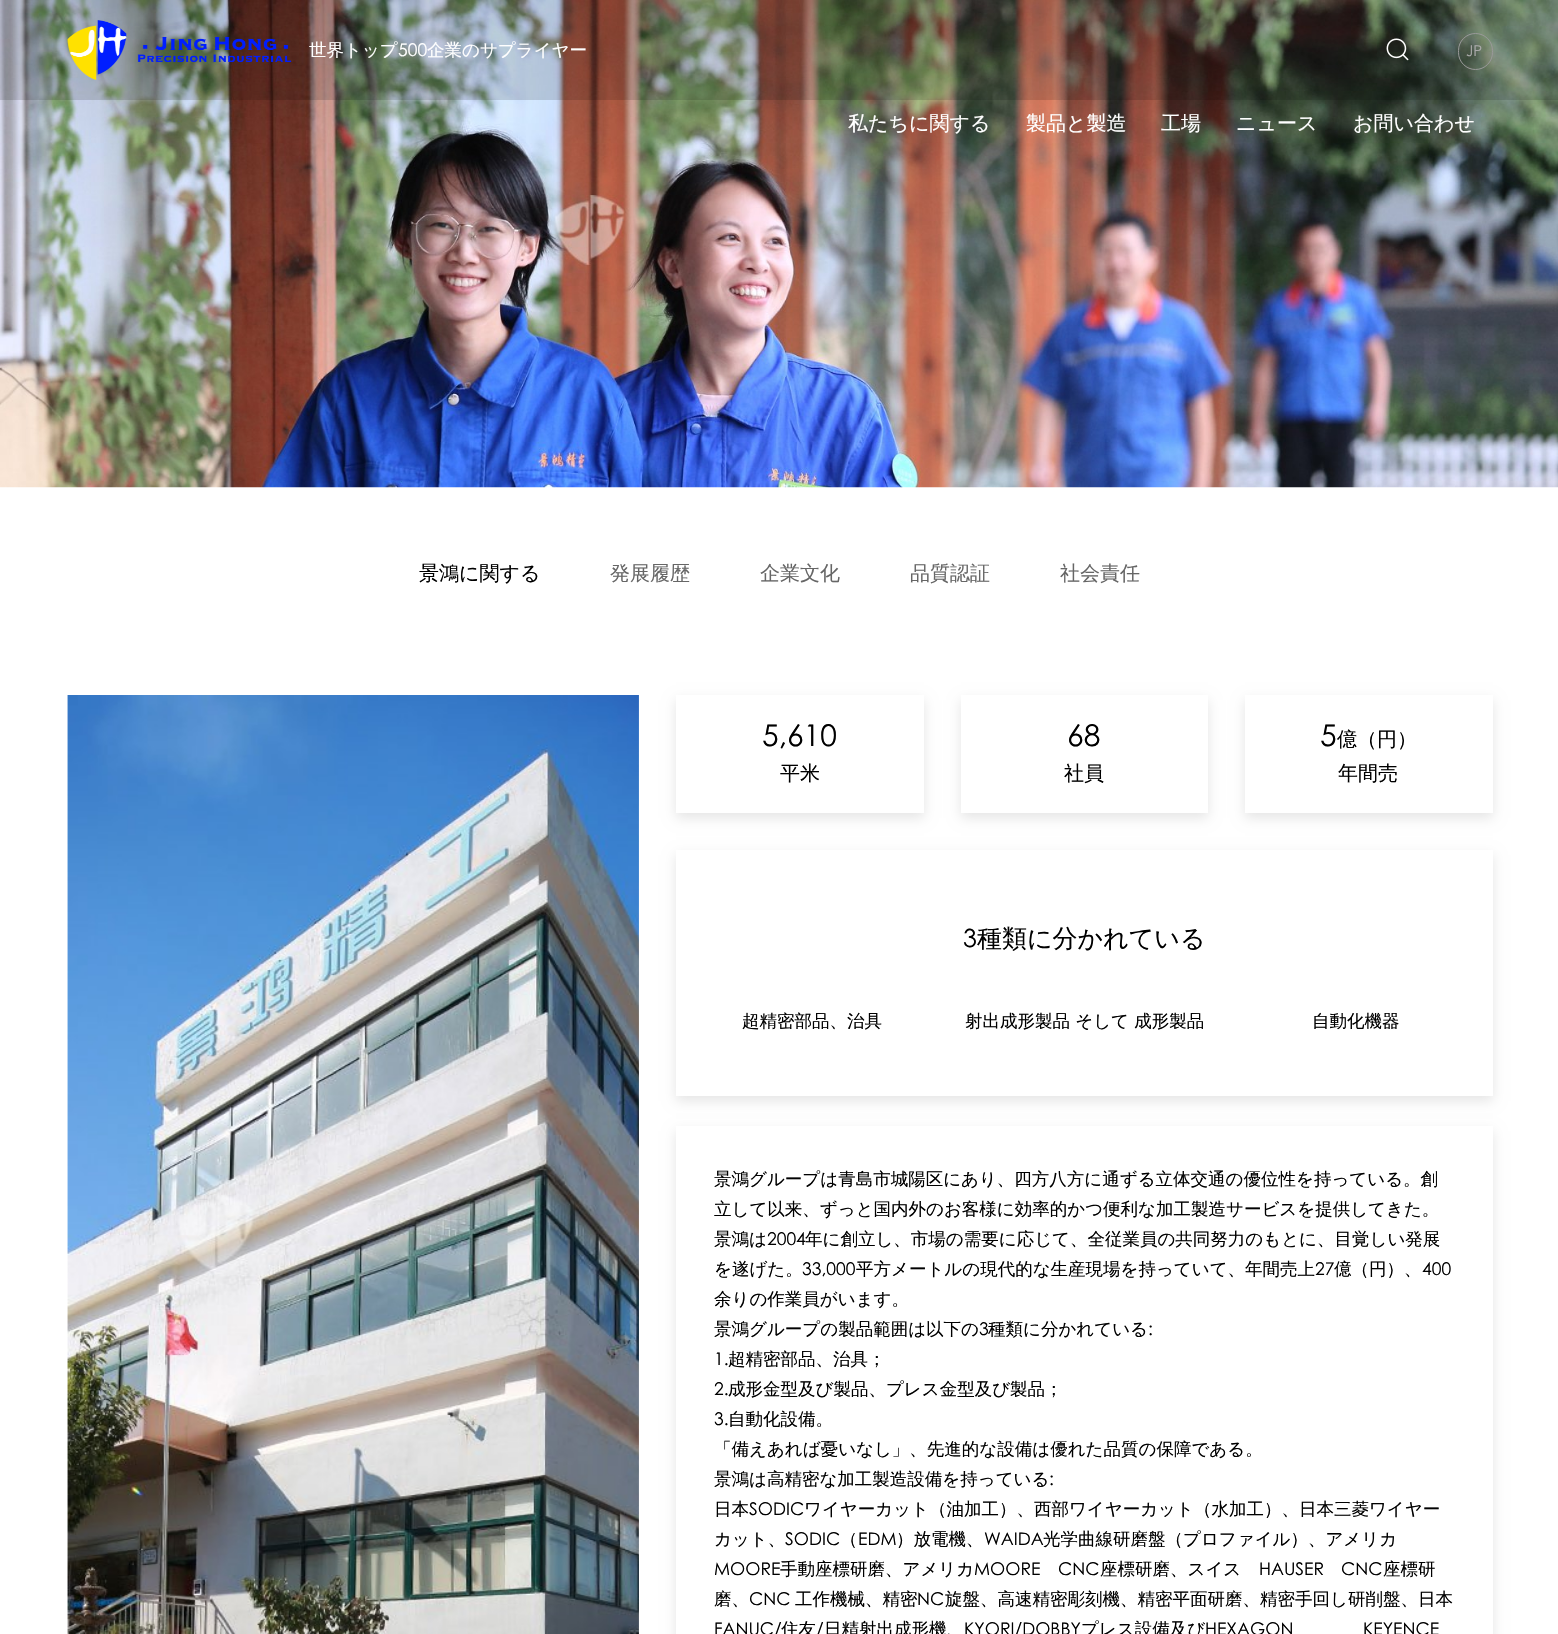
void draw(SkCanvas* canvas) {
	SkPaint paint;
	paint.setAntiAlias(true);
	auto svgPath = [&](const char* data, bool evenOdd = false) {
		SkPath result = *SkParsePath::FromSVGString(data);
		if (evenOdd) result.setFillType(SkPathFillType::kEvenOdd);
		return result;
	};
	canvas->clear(0xffffffff);
	canvas->drawImageRect(SkImages::DeferredFromEncodedData(SkData::MakeFromFileName("img1.png")), SkRect::MakeXYWH(0, 0, 1558, 488), SkSamplingOptions());
	paint.setColor(0x24000000);
	canvas->drawRect(SkRect::MakeXYWH(0, 0, 1558, 100), paint);
	canvas->drawImageRect(SkImages::DeferredFromEncodedData(SkData::MakeFromFileName("img2.png")), SkRect::MakeXYWH(67, 20, 225, 60), SkSamplingOptions());
	SkFont f1(fontMgr->matchFamilyStyle("WenQuanYi Zen Hei", SkFontStyle(500, SkFontStyle::kNormal_Width, SkFontStyle::kUpright_Slant)), 17.5);
	f1.setSubpixel(true);
	paint.setColor(0xffffffff);
	canvas->drawString("世界トップ", 309, 56, f1, paint);
	SkFont f2(fontMgr->matchFamilyStyle("Century Gothic", SkFontStyle::Normal()), 17.5);
	f2.setSubpixel(true);
	canvas->drawString("500", 398, 56, f2, paint);
	canvas->drawString("企業のサプライヤー", 427, 56, f1, paint);
	canvas->drawImageRect(SkImages::DeferredFromEncodedData(SkData::MakeFromFileName("img3.png")), SkRect::MakeXYWH(1386, 38, 23, 23), SkSamplingOptions());
	paint.setStroke(true);
	paint.setStrokeWidth(1);
	paint.setColor(0xff999999);
	canvas->drawRoundRect(SkRect::MakeXYWH(1458.5, 33.5, 34, 36), 17, 17, paint);
	SkFont f3(fontMgr->matchFamilyStyle("Century Gothic", SkFontStyle::Normal()), 15);
	f3.setSubpixel(true);
	paint.setStroke(false);
	paint.setColor(0xffaaaaaa);
	canvas->drawString("JP", 1466, 56, f3, paint);
	SkFont f4(fontMgr->matchFamilyStyle("WenQuanYi Zen Hei", SkFontStyle(500, SkFontStyle::kNormal_Width, SkFontStyle::kUpright_Slant)), 20);
	f4.setSubpixel(true);
	paint.setColor(0xffffffff);
	canvas->drawString("私たちに関する", 848, 130, f4, paint);
	canvas->drawString("製品と製造", 1026, 130, f4, paint);
	canvas->drawString("工場", 1161, 130, f4, paint);
	canvas->drawString("ニュース", 1236, 130, f4, paint);
	canvas->drawString("お問い合わせ", 1353, 130, f4, paint);
	paint.setColor(0xff000000);
	canvas->drawString("景鴻に関する", 419, 580, f4, paint);
	paint.setColor(0xff666666);
	canvas->drawString("発展履歴", 610, 580, f4, paint);
	canvas->drawString("企業文化", 760, 580, f4, paint);
	canvas->drawString("品質認証", 910, 580, f4, paint);
	canvas->drawString("社会責任", 1060, 580, f4, paint);
	canvas->drawImageRect(SkImages::DeferredFromEncodedData(SkData::MakeFromFileName("img4.png")), SkRect::MakeXYWH(67, 695, 572, 939), SkSamplingOptions());
	canvas->drawImageRect(SkImages::DeferredFromEncodedData(SkData::MakeFromFileName("img5.png")), SkRect::MakeXYWH(67, 695, 572, 939), SkSamplingOptions());
	canvas->save();
	canvas->clipPath(svgPath("M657 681H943V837H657ZM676 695H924V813H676Z", true), true);
	paint.setColor(0x1a000000);
	paint.setMaskFilter(SkMaskFilter::MakeBlur(kNormal_SkBlurStyle, 6));
	canvas->drawRect(SkRect::MakeXYWH(676, 700, 248, 118), paint);
	paint.setMaskFilter(nullptr);
	canvas->restore();
	SkFont f5(fontMgr->matchFamilyStyle("Century Gothic", SkFontStyle::Normal()), 30);
	f5.setSubpixel(true);
	paint.setColor(0xff000000);
	canvas->drawString("5,610", 762, 746, f5, paint);
	canvas->drawString("平米", 780, 780, f4, paint);
	canvas->save();
	canvas->clipPath(svgPath("M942 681H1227V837H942ZM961 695H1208V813H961Z", true), true);
	paint.setColor(0x1a000000);
	paint.setMaskFilter(SkMaskFilter::MakeBlur(kNormal_SkBlurStyle, 6));
	canvas->drawRect(SkRect::MakeXYWH(961, 700, 247, 118), paint);
	paint.setMaskFilter(nullptr);
	canvas->restore();
	paint.setColor(0xff000000);
	canvas->drawString("68", 1067, 746, f5, paint);
	canvas->drawString("社員", 1064, 780, f4, paint);
	canvas->save();
	canvas->clipPath(svgPath("M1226 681H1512V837H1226ZM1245 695H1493V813H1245Z", true), true);
	paint.setColor(0x1a000000);
	paint.setMaskFilter(SkMaskFilter::MakeBlur(kNormal_SkBlurStyle, 6));
	canvas->drawRect(SkRect::MakeXYWH(1245, 700, 248, 118), paint);
	paint.setMaskFilter(nullptr);
	canvas->restore();
	paint.setColor(0xff000000);
	canvas->drawString("5", 1320, 746, f5, paint);
	canvas->drawString("億（円）", 1337, 746, f4, paint);
	canvas->drawString("年間売", 1338, 780, f4, paint);
	canvas->save();
	canvas->clipPath(svgPath("M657 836H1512V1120H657ZM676 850H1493V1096H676Z", true), true);
	paint.setColor(0x1a000000);
	paint.setMaskFilter(SkMaskFilter::MakeBlur(kNormal_SkBlurStyle, 6));
	canvas->drawRect(SkRect::MakeXYWH(676, 855, 817, 246), paint);
	paint.setMaskFilter(nullptr);
	canvas->restore();
	SkFont f6(fontMgr->matchFamilyStyle("Century Gothic", SkFontStyle::Normal()), 25);
	f6.setSubpixel(true);
	paint.setColor(0xff000000);
	canvas->drawString("3", 963, 947, f6, paint);
	SkFont f7(fontMgr->matchFamilyStyle("WenQuanYi Zen Hei", SkFontStyle(500, SkFontStyle::kNormal_Width, SkFontStyle::kUpright_Slant)), 25);
	f7.setSubpixel(true);
	canvas->drawString("種類に分かれている", 977, 947, f7, paint);
	canvas->drawString("超精密部品、治具", 742, 1027, f1, paint);
	canvas->drawString("射出成形製品 そして 成形製品", 965, 1027, f1, paint);
	canvas->drawString("自動化機器", 1312, 1027, f1, paint);
	canvas->save();
	canvas->clipPath(svgPath("M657 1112H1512V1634H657ZM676 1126H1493V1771H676Z", true), true);
	paint.setColor(0x1a000000);
	paint.setMaskFilter(SkMaskFilter::MakeBlur(kNormal_SkBlurStyle, 6));
	canvas->drawRect(SkRect::MakeXYWH(676, 1131, 817, 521), paint);
	paint.setMaskFilter(nullptr);
	canvas->restore();
	paint.setColor(0xff000000);
	canvas->drawString("景鴻グループは青島市城陽区にあり、四方八方に通ずる立体交通の優位性を持っている。創", 714, 1185, f1, paint);
	canvas->drawString("立して以来、ずっと国内外のお客様に効率的かつ便利な加工製造サービスを提供してきた。", 714, 1215, f1, paint);
	canvas->drawString("景鴻は", 714, 1245, f1, paint);
	canvas->drawString("2004", 767, 1245, f2, paint);
	canvas->drawString("年に創立し、市場の需要に応じて、全従業員の共同努力のもとに、目覚しい発展", 805, 1245, f1, paint);
	canvas->drawString("を遂げた。", 714, 1275, f1, paint);
	canvas->drawString("33,000", 802, 1275, f2, paint);
	canvas->drawString("平方メートルの現代的な生産現場を持っていて、年間売上", 856, 1275, f1, paint);
	canvas->drawString("27", 1315, 1275, f2, paint);
	canvas->drawString("億（円）、", 1334, 1275, f1, paint);
	canvas->drawString("400", 1422, 1275, f2, paint);
	canvas->drawString("余りの作業員がいます。", 714, 1305, f1, paint);
	canvas->drawString("景鴻グループの製品範囲は以下の", 714, 1335, f1, paint);
	canvas->drawString("3", 979, 1335, f2, paint);
	canvas->drawString("種類に分かれている", 988, 1335, f1, paint);
	canvas->drawString(":", 1148, 1335, f2, paint);
	canvas->drawString("1.", 714, 1365, f2, paint);
	canvas->drawString("超精密部品、治具；", 728, 1365, f1, paint);
	canvas->drawString("2.", 714, 1395, f2, paint);
	canvas->drawString("成形金型及び製品、プレス金型及び製品；", 728, 1395, f1, paint);
	canvas->drawString("3.", 714, 1425, f2, paint);
	canvas->drawString("自動化設備。", 728, 1425, f1, paint);
	canvas->drawString("「備えあれば憂いなし」、先進的な設備は優れた品質の保障である。", 714, 1455, f1, paint);
	canvas->drawString("景鴻は高精密な加工製造設備を持っている", 714, 1485, f1, paint);
	canvas->drawString(":", 1049, 1485, f2, paint);
	canvas->drawString("日本", 714, 1515, f1, paint);
	canvas->drawString("SODIC", 749, 1515, f2, paint);
	canvas->drawString("ワイヤーカット（油加工）、西部ワイヤーカット（水加工）、日本三菱ワイヤー", 804, 1515, f1, paint);
	canvas->drawString("カット、", 714, 1545, f1, paint);
	canvas->drawString("SODIC", 785, 1545, f2, paint);
	canvas->drawString("（", 840, 1545, f1, paint);
	canvas->drawString("EDM", 858, 1545, f2, paint);
	canvas->drawString("）放電機、", 896, 1545, f1, paint);
	canvas->drawString("WAIDA", 984, 1545, f2, paint);
	canvas->drawString("光学曲線研磨盤（プロファイル）、アメリカ", 1043, 1545, f1, paint);
	canvas->drawString("MOORE", 714, 1575, f2, paint);
	canvas->drawString("手動座標研磨、アメリカ", 780, 1575, f1, paint);
	canvas->drawString("MOORE", 974, 1575, f2, paint);
	canvas->drawString("CNC", 1058, 1575, f2, paint);
	canvas->drawString("座標研磨、スイス", 1100, 1575, f1, paint);
	canvas->drawString("HAUSER", 1259, 1575, f2, paint);
	canvas->drawString("CNC", 1341, 1575, f2, paint);
	canvas->drawString("座標研", 1383, 1575, f1, paint);
	canvas->drawString("磨、", 714, 1605, f1, paint);
	canvas->drawString("CNC", 749, 1605, f2, paint);
	canvas->drawString("工作機械、精密", 795, 1605, f1, paint);
	canvas->drawString("NC", 917, 1605, f2, paint);
	canvas->drawString("旋盤、高速精密彫刻機、精密平面研磨、精密手回し研削盤、日本", 945, 1605, f1, paint);
	canvas->drawString("FANUC/", 714, 1635, f2, paint);
	canvas->drawString("住友", 781, 1635, f1, paint);
	canvas->drawString("/", 816, 1635, f2, paint);
	canvas->drawString("日精射出成形機、", 824, 1635, f1, paint);
	canvas->drawString("KYORI/DOBBY", 964, 1635, f2, paint);
	canvas->drawString("プレス設備及び", 1081, 1635, f1, paint);
	canvas->drawString("HEXAGON", 1205, 1635, f2, paint);
	canvas->drawString("KEYENCE", 1363, 1635, f2, paint);
}
